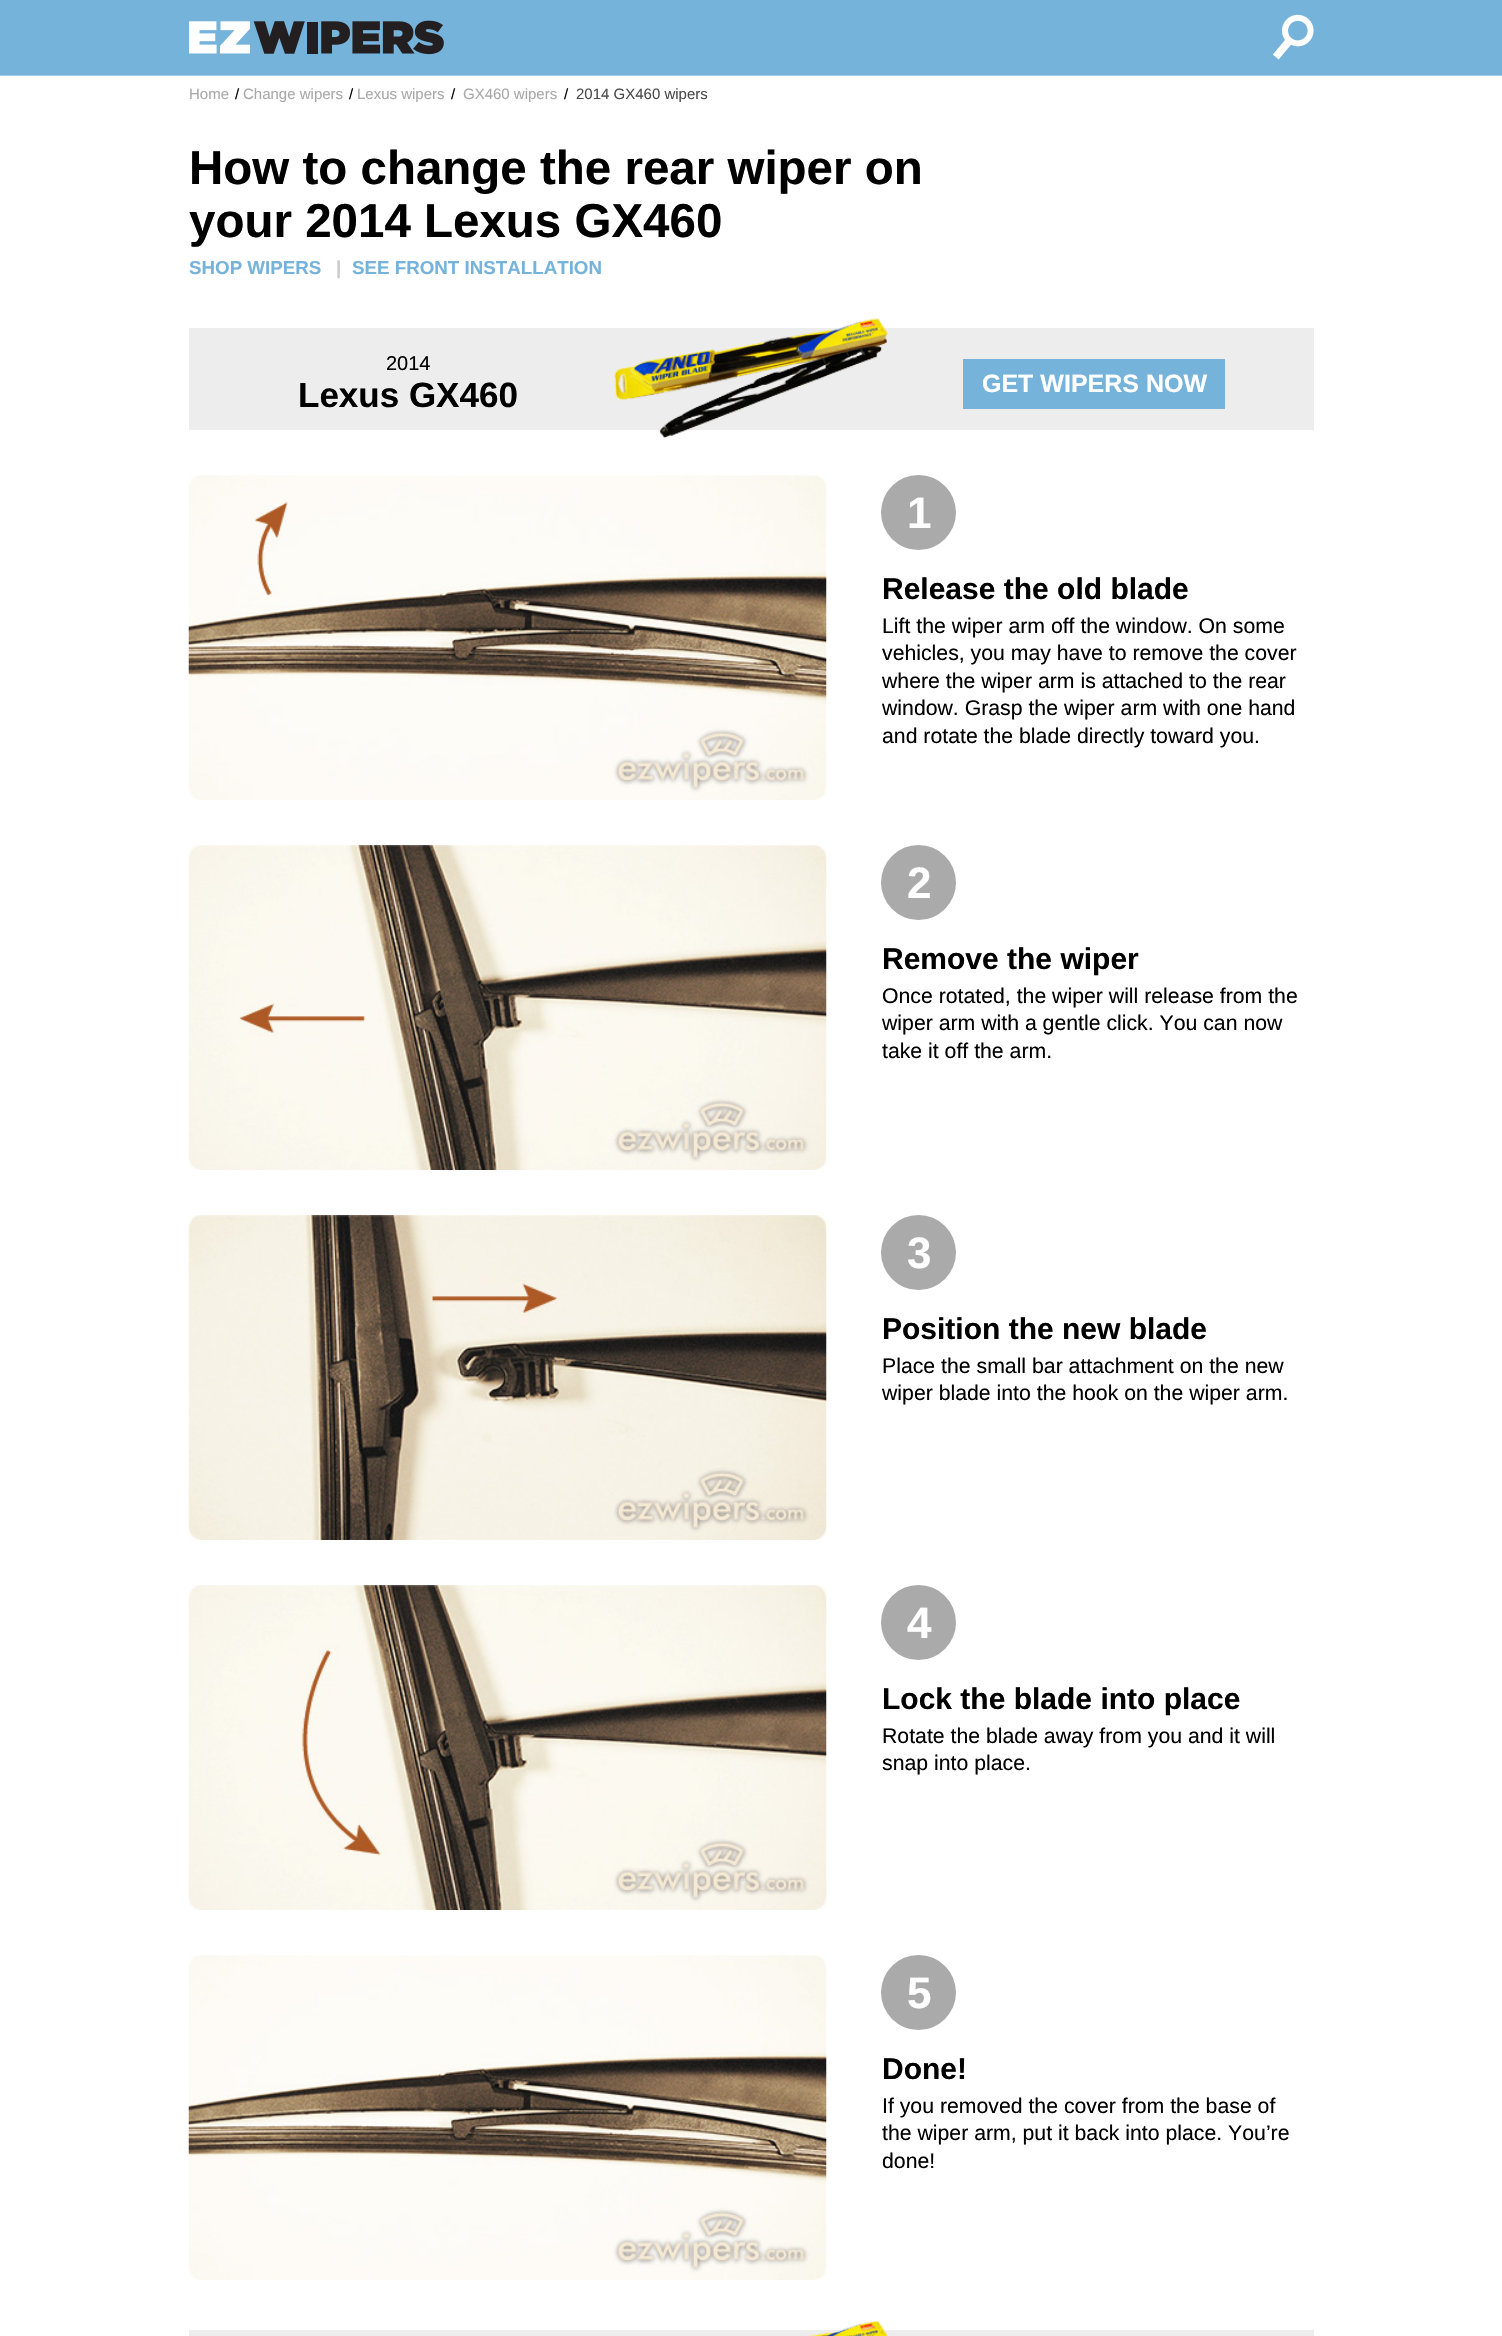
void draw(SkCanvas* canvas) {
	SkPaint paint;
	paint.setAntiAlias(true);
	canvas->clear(0xffffffff);
	paint.setColor(0xff75b3db);
	canvas->drawRect(SkRect::MakeXYWH(0, 0, 1502, 75), paint);
	paint.setColor(0xff9ecae6);
	canvas->drawRect(SkRect::MakeXYWH(0, 75, 1502, 1), paint);
	canvas->drawImageRect(SkImages::DeferredFromEncodedData(SkData::MakeFromFileName("img1.png")), SkRect::MakeXYWH(189, 20, 255, 35), SkSamplingOptions());
	canvas->drawImageRect(SkImages::DeferredFromEncodedData(SkData::MakeFromFileName("img2.png")), SkRect::MakeXYWH(1272, 14, 42, 46), SkSamplingOptions());
	SkFont f1(fontMgr->matchFamilyStyle("Liberation Sans", SkFontStyle::Normal()), 15);
	f1.setSubpixel(true);
	paint.setColor(0xffa9a9a9);
	canvas->drawString("Home", 189, 99, f1, paint);
	paint.setColor(0xff000000);
	canvas->drawString("/", 235, 99, f1, paint);
	paint.setColor(0xffa9a9a9);
	canvas->drawString("Change wipers", 243, 99, f1, paint);
	paint.setColor(0xff000000);
	canvas->drawString("/", 349, 99, f1, paint);
	paint.setColor(0xffa9a9a9);
	canvas->drawString("Lexus wipers", 357, 99, f1, paint);
	paint.setColor(0xff000000);
	canvas->drawString("/", 451, 99, f1, paint);
	paint.setColor(0xffa9a9a9);
	canvas->drawString("GX460 wipers", 463, 99, f1, paint);
	paint.setColor(0xff000000);
	canvas->drawString("/", 564, 99, f1, paint);
	paint.setColor(0xff4b4b4b);
	canvas->drawString("2014 GX460 wipers", 576, 99, f1, paint);
	SkFont f2(fontMgr->matchFamilyStyle("Liberation Sans", SkFontStyle::Bold()), 47.5);
	f2.setSubpixel(true);
	paint.setColor(0xff000000);
	canvas->drawString("How to change the rear wiper on", 189, 184, f2, paint);
	canvas->drawString("your 2014 Lexus GX460", 189, 237, f2, paint);
	SkFont f3(fontMgr->matchFamilyStyle("Liberation Sans", SkFontStyle::Bold()), 18.75);
	f3.setSubpixel(true);
	paint.setColor(0xff75b3db);
	canvas->drawString("SHOP WIPERS", 189, 274, f3, paint);
	paint.setColor(0xffcccccc);
	canvas->drawString("|", 336, 274, f3, paint);
	paint.setColor(0xff75b3db);
	canvas->drawString("SEE FRONT INSTALLATION", 352, 274, f3, paint);
	paint.setColor(0xffededed);
	canvas->drawRect(SkRect::MakeXYWH(189, 328, 1125, 102), paint);
	SkFont f4(fontMgr->matchFamilyStyle("Liberation Sans", SkFontStyle::Normal()), 20);
	f4.setSubpixel(true);
	paint.setColor(0xff000000);
	canvas->drawString("2014", 386, 370, f4, paint);
	SkFont f5(fontMgr->matchFamilyStyle("Liberation Sans", SkFontStyle::Bold()), 35);
	f5.setSubpixel(true);
	canvas->drawString("Lexus GX460", 298, 407, f5, paint);
	canvas->drawImageRect(SkImages::DeferredFromEncodedData(SkData::MakeFromFileName("img3.png")), SkRect::MakeXYWH(614, 318, 274, 120), SkSamplingOptions());
	paint.setColor(0xff75b3db);
	canvas->drawRect(SkRect::MakeXYWH(963, 359, 262, 50), paint);
	SkFont f6(fontMgr->matchFamilyStyle("Liberation Sans", SkFontStyle::Bold()), 25);
	f6.setSubpixel(true);
	paint.setColor(0xffffffff);
	canvas->drawString("GET WIPERS NOW", 982, 392, f6, paint);
	canvas->drawImageRect(SkImages::DeferredFromEncodedData(SkData::MakeFromFileName("img4.png")), SkRect::MakeXYWH(188, 475, 639, 325), SkSamplingOptions());
	paint.setColor(0xffaaaaaa);
	canvas->drawCircle(918.5, 512.5, 37.5, paint);
	SkFont f7(fontMgr->matchFamilyStyle("Liberation Sans", SkFontStyle::Bold()), 44);
	f7.setSubpixel(true);
	paint.setColor(0xffffffff);
	canvas->drawString("1", 907, 528, f7, paint);
	SkFont f8(fontMgr->matchFamilyStyle("Liberation Sans", SkFontStyle::Bold()), 30);
	f8.setSubpixel(true);
	paint.setColor(0xff000000);
	canvas->drawString("Release the old blade", 882, 599, f8, paint);
	SkFont f9(fontMgr->matchFamilyStyle("Liberation Sans", SkFontStyle::Normal()), 21.25);
	f9.setSubpixel(true);
	canvas->drawString("Lift the wiper arm off the window. On some", 882, 633, f9, paint);
	canvas->drawString("vehicles, you may have to remove the cover", 882, 660, f9, paint);
	canvas->drawString("where the wiper arm is attached to the rear", 882, 688, f9, paint);
	canvas->drawString("window. Grasp the wiper arm with one hand", 882, 715, f9, paint);
	canvas->drawString("and rotate the blade directly toward you.", 882, 743, f9, paint);
	canvas->drawImageRect(SkImages::DeferredFromEncodedData(SkData::MakeFromFileName("img5.png")), SkRect::MakeXYWH(188, 845, 639, 325), SkSamplingOptions());
	paint.setColor(0xffaaaaaa);
	canvas->drawCircle(918.5, 882.5, 37.5, paint);
	paint.setColor(0xffffffff);
	canvas->drawString("2", 907, 898, f7, paint);
	paint.setColor(0xff000000);
	canvas->drawString("Remove the wiper", 882, 969, f8, paint);
	canvas->drawString("Once rotated, the wiper will release from the", 882, 1003, f9, paint);
	canvas->drawString("wiper arm with a gentle click. You can now", 882, 1030, f9, paint);
	canvas->drawString("take it off the arm.", 882, 1058, f9, paint);
	canvas->drawImageRect(SkImages::DeferredFromEncodedData(SkData::MakeFromFileName("img6.png")), SkRect::MakeXYWH(188, 1215, 639, 325), SkSamplingOptions());
	paint.setColor(0xffaaaaaa);
	canvas->drawCircle(918.5, 1252.5, 37.5, paint);
	paint.setColor(0xffffffff);
	canvas->drawString("3", 907, 1268, f7, paint);
	paint.setColor(0xff000000);
	canvas->drawString("Position the new blade", 882, 1339, f8, paint);
	canvas->drawString("Place the small bar attachment on the new", 882, 1373, f9, paint);
	canvas->drawString("wiper blade into the hook on the wiper arm.", 882, 1400, f9, paint);
	canvas->drawImageRect(SkImages::DeferredFromEncodedData(SkData::MakeFromFileName("img7.png")), SkRect::MakeXYWH(188, 1585, 639, 325), SkSamplingOptions());
	paint.setColor(0xffaaaaaa);
	canvas->drawCircle(918.5, 1622.5, 37.5, paint);
	paint.setColor(0xffffffff);
	canvas->drawString("4", 907, 1638, f7, paint);
	paint.setColor(0xff000000);
	canvas->drawString("Lock the blade into place", 882, 1709, f8, paint);
	canvas->drawString("Rotate the blade away from you and it will", 882, 1743, f9, paint);
	canvas->drawString("snap into place.", 882, 1770, f9, paint);
	canvas->drawImageRect(SkImages::DeferredFromEncodedData(SkData::MakeFromFileName("img8.png")), SkRect::MakeXYWH(188, 1955, 639, 325), SkSamplingOptions());
	paint.setColor(0xffaaaaaa);
	canvas->drawCircle(918.5, 1992.5, 37.5, paint);
	paint.setColor(0xffffffff);
	canvas->drawString("5", 907, 2008, f7, paint);
	paint.setColor(0xff000000);
	canvas->drawString("Done!", 882, 2079, f8, paint);
	canvas->drawString("If you removed the cover from the base of", 882, 2113, f9, paint);
	canvas->drawString("the wiper arm, put it back into place. You’re", 882, 2140, f9, paint);
	canvas->drawString("done!", 882, 2168, f9, paint);
	paint.setColor(0xffededed);
	canvas->drawRect(SkRect::MakeXYWH(189, 2330, 1125, 6), paint);
	canvas->drawImageRect(SkImages::DeferredFromEncodedData(SkData::MakeFromFileName("img9.png")), SkRect::MakeXYWH(806, 2320, 82, 16), SkSamplingOptions());
}
